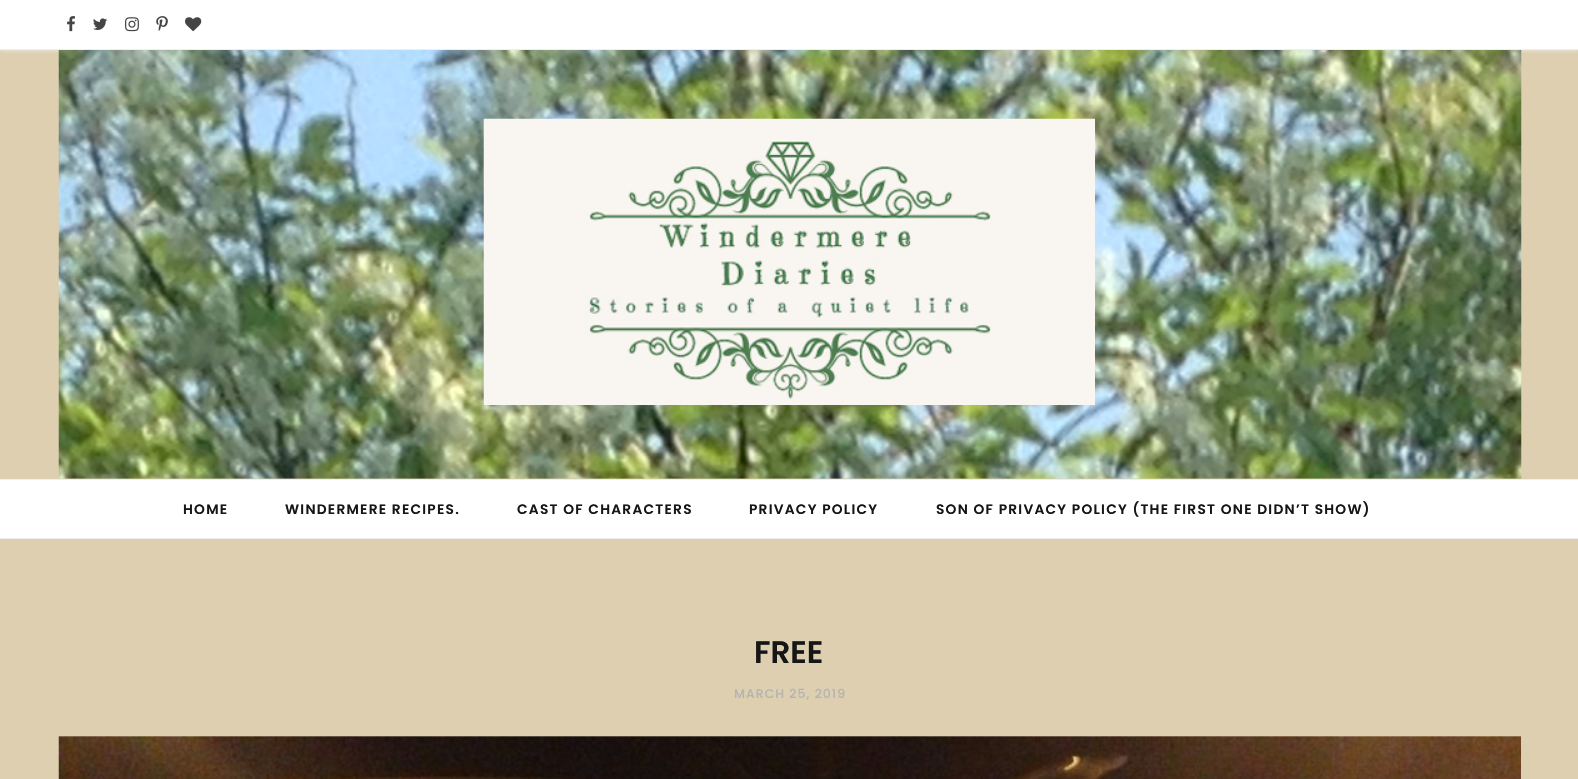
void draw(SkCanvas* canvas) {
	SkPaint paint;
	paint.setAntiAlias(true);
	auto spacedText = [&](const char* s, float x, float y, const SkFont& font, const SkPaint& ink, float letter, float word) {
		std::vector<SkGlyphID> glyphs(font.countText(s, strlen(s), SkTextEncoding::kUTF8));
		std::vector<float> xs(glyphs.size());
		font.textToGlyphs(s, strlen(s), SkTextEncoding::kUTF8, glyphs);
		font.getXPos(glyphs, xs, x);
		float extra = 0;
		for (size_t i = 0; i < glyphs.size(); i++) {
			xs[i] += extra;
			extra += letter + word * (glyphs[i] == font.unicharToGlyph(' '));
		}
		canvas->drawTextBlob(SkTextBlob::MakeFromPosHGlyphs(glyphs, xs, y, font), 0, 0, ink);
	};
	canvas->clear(0xffddcfaf);
	paint.setColor(0xffeeeeee);
	paint.setMaskFilter(SkMaskFilter::MakeBlur(kNormal_SkBlurStyle, 2.5));
	canvas->drawRect(SkRect::MakeXYWH(0, 0, 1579, 50), paint);
	paint.setMaskFilter(nullptr);
	paint.setColor(0xffffffff);
	canvas->drawRect(SkRect::MakeXYWH(0, 0, 1578, 49), paint);
	paint.setColor(0xffefefef);
	canvas->drawRect(SkRect::MakeXYWH(0, 49, 1578, 1), paint);
	canvas->drawImageRect(SkImages::DeferredFromEncodedData(SkData::MakeFromFileName("img1.png")), SkRect::MakeXYWH(67, 16, 8, 16), SkSamplingOptions());
	canvas->drawImageRect(SkImages::DeferredFromEncodedData(SkData::MakeFromFileName("img2.png")), SkRect::MakeXYWH(93, 18, 14, 12), SkSamplingOptions());
	canvas->drawImageRect(SkImages::DeferredFromEncodedData(SkData::MakeFromFileName("img3.png")), SkRect::MakeXYWH(125, 17, 14, 15), SkSamplingOptions());
	canvas->drawImageRect(SkImages::DeferredFromEncodedData(SkData::MakeFromFileName("img4.png")), SkRect::MakeXYWH(156, 16, 12, 16), SkSamplingOptions());
	canvas->drawImageRect(SkImages::DeferredFromEncodedData(SkData::MakeFromFileName("img5.png")), SkRect::MakeXYWH(185, 17, 17, 15), SkSamplingOptions());
	canvas->drawImageRect(SkImages::DeferredFromEncodedData(SkData::MakeFromFileName("img6.png")), SkRect::MakeXYWH(58, 50, 1464, 429), SkSamplingOptions());
	canvas->drawImageRect(SkImages::DeferredFromEncodedData(SkData::MakeFromFileName("img7.png")), SkRect::MakeXYWH(483, 118, 612, 287), SkSamplingOptions());
	paint.setColor(0xffffffff);
	canvas->drawRect(SkRect::MakeXYWH(0, 480, 1578, 58), paint);
	paint.setColor(0xffefefef);
	canvas->drawRect(SkRect::MakeXYWH(0, 479, 1578, 1), paint);
	canvas->drawRect(SkRect::MakeXYWH(0, 538, 1578, 1), paint);
	SkFont f1(fontMgr->matchFamilyStyle("Poppins", SkFontStyle(600, SkFontStyle::kNormal_Width, SkFontStyle::kUpright_Slant)), 13.75);
	f1.setSubpixel(true);
	paint.setColor(0xff161616);
	spacedText("HOME", 183, 514, f1, paint, 1.25, 0);
	spacedText("WINDERMERE RECIPES.", 285, 514, f1, paint, 1.25, 0);
	spacedText("CAST OF CHARACTERS", 517, 514, f1, paint, 1.25, 0);
	spacedText("PRIVACY POLICY", 749, 514, f1, paint, 1.25, 0);
	spacedText("SON OF PRIVACY POLICY (THE FIRST ONE DIDN’T SHOW)", 936, 514, f1, paint, 1.25, 0);
	SkFont f2(fontMgr->matchFamilyStyle("Poppins", SkFontStyle(600, SkFontStyle::kNormal_Width, SkFontStyle::kUpright_Slant)), 31);
	f2.setSubpixel(true);
	canvas->drawString("FREE", 754, 663, f2, paint);
	SkFont f3(fontMgr->matchFamilyStyle("Poppins", SkFontStyle(500, SkFontStyle::kNormal_Width, SkFontStyle::kUpright_Slant)), 12.5);
	f3.setSubpixel(true);
	paint.setColor(0xffb4b4b4);
	spacedText("MARCH 25, 2019", 734, 698, f3, paint, 1, 0);
	canvas->drawImageRect(SkImages::DeferredFromEncodedData(SkData::MakeFromFileName("img8.png")), SkRect::MakeXYWH(58, 736, 1463, 43), SkSamplingOptions());
}
